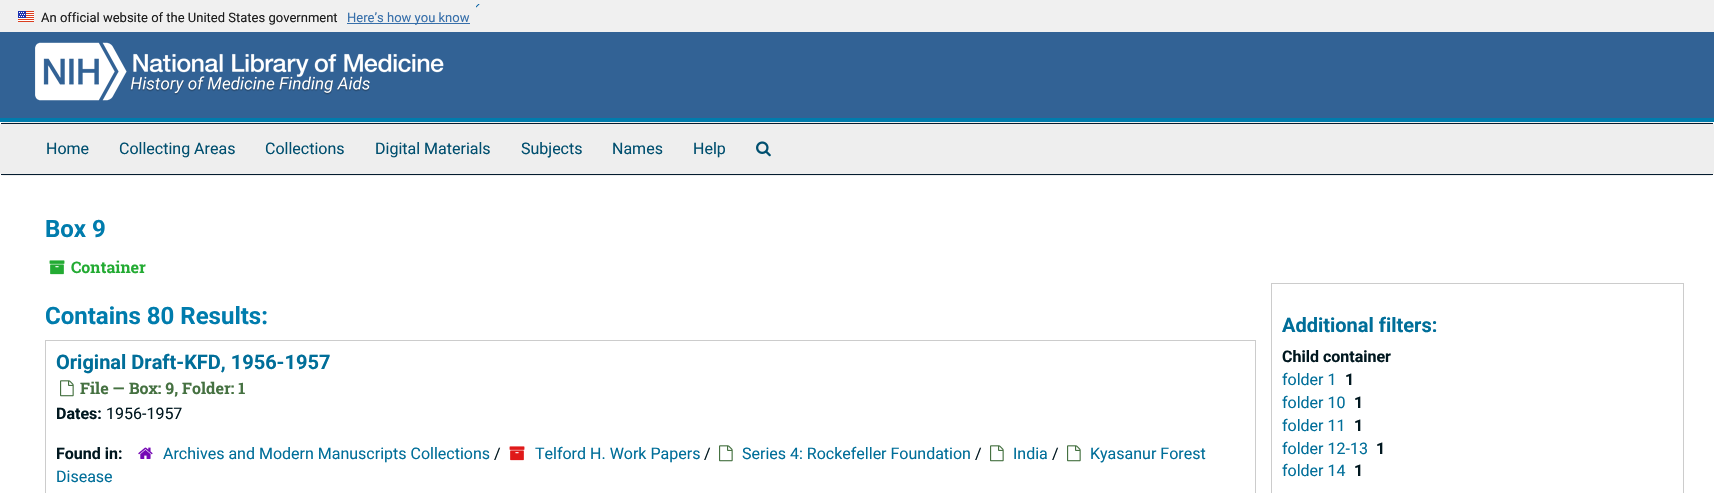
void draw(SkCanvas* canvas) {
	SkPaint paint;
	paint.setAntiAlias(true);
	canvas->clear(0xffffffff);
	paint.setColor(0xfff0f0f0);
	canvas->drawRect(SkRect::MakeXYWH(0, 0, 1714, 32), paint);
	canvas->drawImageRect(SkImages::DeferredFromEncodedData(SkData::MakeFromFileName("img1.png")), SkRect::MakeXYWH(476, 4, 4, 4), SkSamplingOptions());
	canvas->drawImageRect(SkImages::DeferredFromEncodedData(SkData::MakeFromFileName("img2.png")), SkRect::MakeXYWH(18, 11, 16, 11), SkSamplingOptions());
	SkFont f1(fontMgr->matchFamilyStyle("Roboto", SkFontStyle::Normal()), 13);
	f1.setSubpixel(true);
	paint.setColor(0xff1b1b1b);
	canvas->drawString("An official website of the United States government", 41, 22, f1, paint);
	paint.setColor(0xff376faa);
	canvas->drawRect(SkRect::MakeXYWH(347, 23, 123, 1), paint);
	canvas->drawString("Here’s how you know", 347, 22, f1, paint);
	paint.setColor(0xff326295);
	canvas->drawRect(SkRect::MakeXYWH(0, 32, 1714, 86), paint);
	paint.setColor(0xff007cad);
	canvas->drawRect(SkRect::MakeXYWH(0, 118, 1714, 4), paint);
	canvas->drawImageRect(SkImages::DeferredFromEncodedData(SkData::MakeFromFileName("img3.png")), SkRect::MakeXYWH(35, 42, 409, 59), SkSamplingOptions());
	paint.setColor(0xffeeeeee);
	canvas->drawRoundRect(SkRect::MakeXYWH(0.5, 122.5, 1713, 53), 3.5, 3.5, paint);
	paint.setStroke(true);
	paint.setStrokeWidth(1);
	canvas->drawRoundRect(SkRect::MakeXYWH(0.5, 122.5, 1713, 53), 3.5, 3.5, paint);
	paint.setStroke(false);
	paint.setColor(0xff041c2f);
	canvas->drawRect(SkRect::MakeXYWH(1, 123, 1712, 1), paint);
	canvas->drawRect(SkRect::MakeXYWH(1, 174, 1712, 1), paint);
	SkFont f2(fontMgr->matchFamilyStyle("Roboto", SkFontStyle::Normal()), 16);
	f2.setSubpixel(true);
	paint.setColor(0xff004f6f);
	canvas->drawString("Home", 46, 154, f2, paint);
	canvas->drawString("Collecting Areas", 119, 154, f2, paint);
	canvas->drawString("Collections", 265, 154, f2, paint);
	canvas->drawString("Digital Materials", 375, 154, f2, paint);
	canvas->drawString("Subjects", 521, 154, f2, paint);
	canvas->drawString("Names", 612, 154, f2, paint);
	canvas->drawString("Help", 693, 154, f2, paint);
	canvas->drawImageRect(SkImages::DeferredFromEncodedData(SkData::MakeFromFileName("img4.png")), SkRect::MakeXYWH(756, 141, 15, 16), SkSamplingOptions());
	SkFont f3(fontMgr->matchFamilyStyle("Roboto", SkFontStyle::Bold()), 24);
	f3.setSubpixel(true);
	paint.setColor(0xff007cad);
	canvas->drawString("Box 9", 45, 237, f3, paint);
	canvas->drawImageRect(SkImages::DeferredFromEncodedData(SkData::MakeFromFileName("img5.png")), SkRect::MakeXYWH(49, 260, 16, 15), SkSamplingOptions());
	SkFont f4(fontMgr->matchFamilyStyle("Roboto Slab", SkFontStyle::Bold()), 16);
	f4.setSubpixel(true);
	paint.setColor(0xff23ab33);
	canvas->drawString("Container", 71, 273, f4, paint);
	paint.setColor(0xff007cad);
	canvas->drawString("Contains 80 Results:", 45, 324, f3, paint);
	paint.setStroke(true);
	paint.setColor(0xffcccccc);
	canvas->drawRect(SkRect::MakeXYWH(45.5, 340.5, 1210, 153), paint);
	SkFont f5(fontMgr->matchFamilyStyle("Roboto", SkFontStyle::Bold()), 20);
	f5.setSubpixel(true);
	paint.setStroke(false);
	paint.setColor(0xff006e99);
	canvas->drawString("Original Draft-KFD, 1956-1957", 56, 369, f5, paint);
	canvas->drawImageRect(SkImages::DeferredFromEncodedData(SkData::MakeFromFileName("img6.png")), SkRect::MakeXYWH(60, 380, 14, 17), SkSamplingOptions());
	paint.setColor(0xff457141);
	canvas->drawString("File — Box: 9, Folder: 1", 80, 394, f4, paint);
	SkFont f6(fontMgr->matchFamilyStyle("Roboto", SkFontStyle::Bold()), 16);
	f6.setSubpixel(true);
	paint.setColor(0xff00171f);
	canvas->drawString("Dates:", 56, 419, f6, paint);
	canvas->drawString("1956-1957", 106, 419, f2, paint);
	canvas->drawString("Found in:", 56, 459, f6, paint);
	canvas->drawImageRect(SkImages::DeferredFromEncodedData(SkData::MakeFromFileName("img7.png")), SkRect::MakeXYWH(509, 446, 16, 15), SkSamplingOptions());
	paint.setColor(0xff006e99);
	canvas->drawString("Telford H. Work Papers", 535, 459, f2, paint);
	canvas->drawImageRect(SkImages::DeferredFromEncodedData(SkData::MakeFromFileName("img6.png")), SkRect::MakeXYWH(719, 445, 14, 17), SkSamplingOptions());
	canvas->drawString("Series 4: Rockefeller Foundation", 742, 459, f2, paint);
	canvas->drawImageRect(SkImages::DeferredFromEncodedData(SkData::MakeFromFileName("img6.png")), SkRect::MakeXYWH(1067, 445, 14, 17), SkSamplingOptions());
	canvas->drawString("Kyasanur Forest", 1090, 459, f2, paint);
	canvas->drawString("Disease", 56, 482, f2, paint);
	canvas->drawImageRect(SkImages::DeferredFromEncodedData(SkData::MakeFromFileName("img8.png")), SkRect::MakeXYWH(138, 447, 15, 12), SkSamplingOptions());
	canvas->drawString("Archives and Modern Manuscripts Collections", 163, 459, f2, paint);
	paint.setColor(0xff00171f);
	canvas->drawString("/", 494, 459, f2, paint);
	canvas->drawString("/", 704, 459, f2, paint);
	canvas->drawString("/", 975, 459, f2, paint);
	canvas->drawImageRect(SkImages::DeferredFromEncodedData(SkData::MakeFromFileName("img6.png")), SkRect::MakeXYWH(990, 445, 14, 17), SkSamplingOptions());
	paint.setColor(0xff006e99);
	canvas->drawString("India", 1013, 459, f2, paint);
	paint.setColor(0xff00171f);
	canvas->drawString("/", 1052, 459, f2, paint);
	paint.setStroke(true);
	paint.setColor(0xffcccccc);
	canvas->drawRect(SkRect::MakeXYWH(1271.5, 283.5, 412, 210), paint);
	paint.setStroke(false);
	paint.setColor(0xff006e99);
	canvas->drawString("Additional filters:", 1282, 332, f5, paint);
	paint.setColor(0xff00171f);
	canvas->drawString("Child container", 1282, 362, f6, paint);
	paint.setColor(0xff006e99);
	canvas->drawString("folder 1", 1282, 385, f2, paint);
	paint.setColor(0xff00171f);
	canvas->drawString("1", 1345, 385, f6, paint);
	paint.setColor(0xff006e99);
	canvas->drawString("folder 10", 1282, 408, f2, paint);
	paint.setColor(0xff00171f);
	canvas->drawString("1", 1354, 408, f6, paint);
	paint.setColor(0xff006e99);
	canvas->drawString("folder 11", 1282, 431, f2, paint);
	paint.setColor(0xff00171f);
	canvas->drawString("1", 1354, 431, f6, paint);
	paint.setColor(0xff006e99);
	canvas->drawString("folder 12-13", 1282, 454, f2, paint);
	paint.setColor(0xff00171f);
	canvas->drawString("1", 1376, 454, f6, paint);
	paint.setColor(0xff006e99);
	canvas->drawString("folder 14", 1282, 476, f2, paint);
	paint.setColor(0xff00171f);
	canvas->drawString("1", 1354, 476, f6, paint);
}
